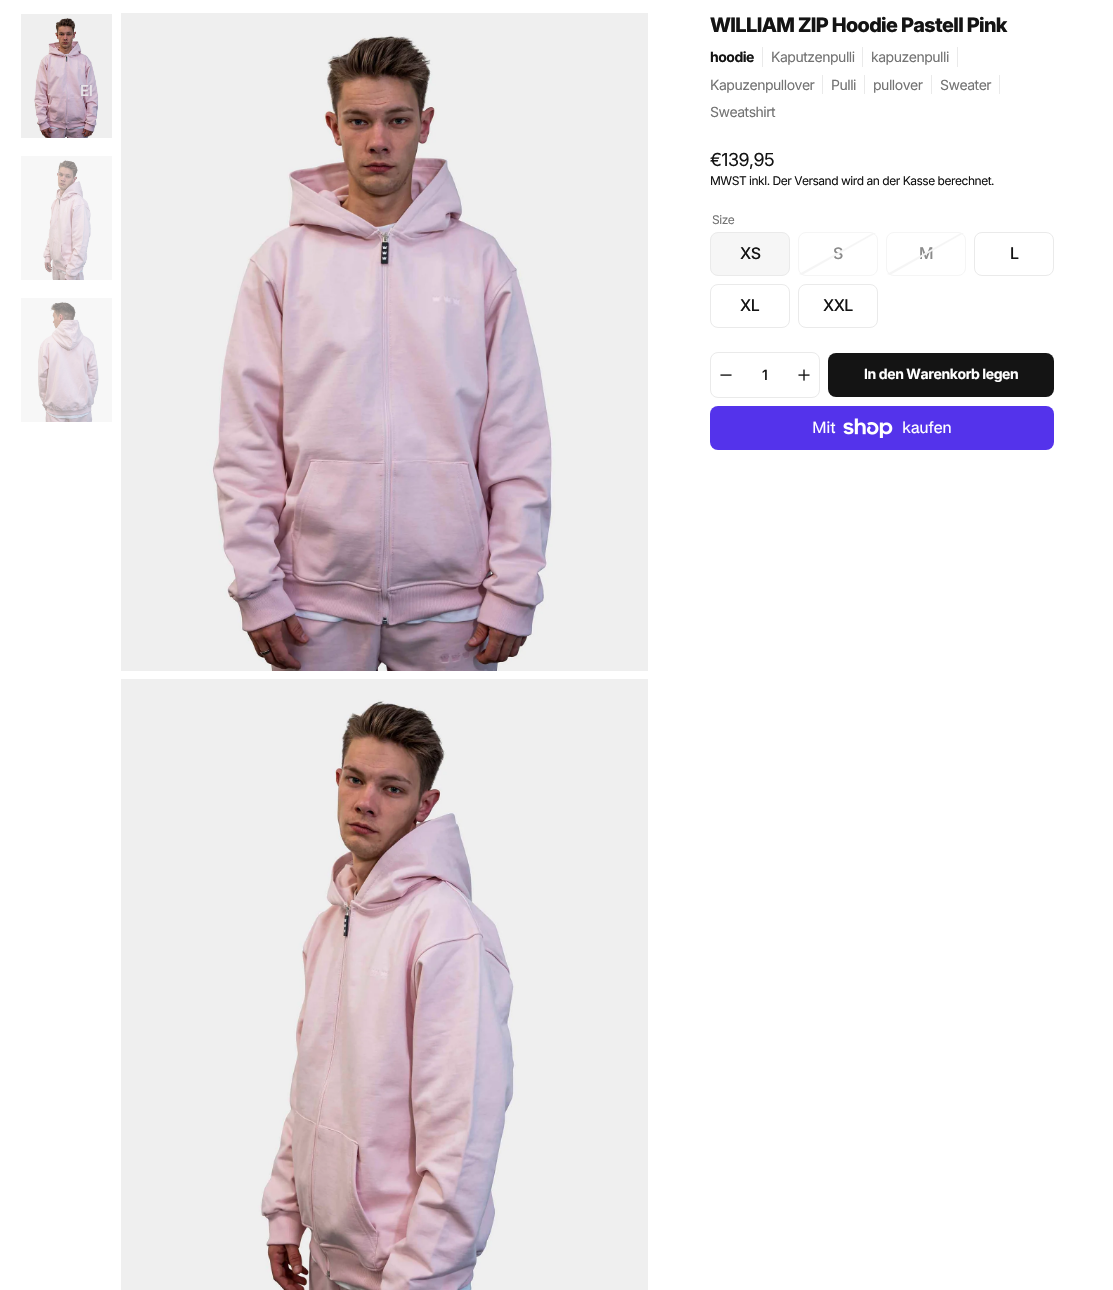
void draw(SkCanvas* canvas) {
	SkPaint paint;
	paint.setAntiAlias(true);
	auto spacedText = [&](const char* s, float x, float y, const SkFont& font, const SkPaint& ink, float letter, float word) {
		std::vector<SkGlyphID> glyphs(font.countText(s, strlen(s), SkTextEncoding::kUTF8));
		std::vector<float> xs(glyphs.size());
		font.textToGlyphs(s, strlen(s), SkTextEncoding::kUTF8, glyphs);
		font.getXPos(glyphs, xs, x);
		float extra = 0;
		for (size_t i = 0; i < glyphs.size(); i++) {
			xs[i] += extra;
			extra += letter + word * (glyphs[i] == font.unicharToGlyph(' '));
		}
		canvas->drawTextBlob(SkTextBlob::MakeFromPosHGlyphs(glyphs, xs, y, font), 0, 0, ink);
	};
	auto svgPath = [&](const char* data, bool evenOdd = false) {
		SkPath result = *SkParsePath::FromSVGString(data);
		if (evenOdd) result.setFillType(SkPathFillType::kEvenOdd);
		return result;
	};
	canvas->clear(0xffffffff);
	canvas->drawImageRect(SkImages::DeferredFromEncodedData(SkData::MakeFromFileName("img1.png")), SkRect::MakeXYWH(21, 14, 91, 124), SkSamplingOptions());
	SkFont f1(fontMgr->matchFamilyStyle("Inter", SkFontStyle(500, SkFontStyle::kNormal_Width, SkFontStyle::kUpright_Slant)), 15);
	f1.setSubpixel(true);
	paint.setColor(0xffe8e5e8);
	canvas->drawString("El", 80, 96, f1, paint);
	canvas->drawImageRect(SkImages::DeferredFromEncodedData(SkData::MakeFromFileName("img2.png")), SkRect::MakeXYWH(21, 156, 91, 124), SkSamplingOptions());
	canvas->drawImageRect(SkImages::DeferredFromEncodedData(SkData::MakeFromFileName("img3.png")), SkRect::MakeXYWH(21, 298, 91, 124), SkSamplingOptions());
	canvas->drawImageRect(SkImages::DeferredFromEncodedData(SkData::MakeFromFileName("img4.png")), SkRect::MakeXYWH(121, 13, 527, 658), SkSamplingOptions());
	canvas->drawImageRect(SkImages::DeferredFromEncodedData(SkData::MakeFromFileName("img5.png")), SkRect::MakeXYWH(121, 679, 527, 611), SkSamplingOptions());
	SkFont f2(fontMgr->matchFamilyStyle("Inter", SkFontStyle(800, SkFontStyle::kNormal_Width, SkFontStyle::kUpright_Slant)), 20);
	f2.setSubpixel(true);
	paint.setColor(0xff141414);
	spacedText("WILLIAM ZIP Hoodie Pastell Pink", 710, 32, f2, paint, -0.6, 0);
	SkFont f3(fontMgr->matchFamilyStyle("Inter", SkFontStyle::Bold()), 14);
	f3.setSubpixel(true);
	spacedText("hoodie", 710, 62, f3, paint, -0.48, 0);
	paint.setColor(0xffeaeaea);
	canvas->drawRect(SkRect::MakeXYWH(762, 47, 1, 20), paint);
	SkFont f4(fontMgr->matchFamilyStyle("Inter", SkFontStyle::Normal()), 14);
	f4.setSubpixel(true);
	paint.setColor(0xff737373);
	spacedText("Kaputzenpulli", 771, 62, f4, paint, -0.48, 0);
	paint.setColor(0xffeaeaea);
	canvas->drawRect(SkRect::MakeXYWH(862, 47, 1, 20), paint);
	paint.setColor(0xff737373);
	spacedText("kapuzenpulli", 871, 62, f4, paint, -0.48, 0);
	paint.setColor(0xffeaeaea);
	canvas->drawRect(SkRect::MakeXYWH(957, 47, 1, 20), paint);
	paint.setColor(0xff737373);
	spacedText("Kapuzenpullover", 710, 90, f4, paint, -0.48, 0);
	paint.setColor(0xffeaeaea);
	canvas->drawRect(SkRect::MakeXYWH(822, 75, 1, 19), paint);
	paint.setColor(0xff737373);
	spacedText("Pulli", 831, 90, f4, paint, -0.48, 0);
	paint.setColor(0xffeaeaea);
	canvas->drawRect(SkRect::MakeXYWH(864, 75, 1, 19), paint);
	paint.setColor(0xff737373);
	spacedText("pullover", 873, 90, f4, paint, -0.48, 0);
	paint.setColor(0xffeaeaea);
	canvas->drawRect(SkRect::MakeXYWH(931, 75, 1, 19), paint);
	paint.setColor(0xff737373);
	spacedText("Sweater", 940, 90, f4, paint, -0.48, 0);
	paint.setColor(0xffeaeaea);
	canvas->drawRect(SkRect::MakeXYWH(999, 75, 1, 19), paint);
	paint.setColor(0xff737373);
	spacedText("Sweatshirt", 710, 117, f4, paint, -0.48, 0);
	SkFont f5(fontMgr->matchFamilyStyle("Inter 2", SkFontStyle::Normal()), 18);
	f5.setSubpixel(true);
	paint.setColor(0xff141414);
	spacedText("€139,95", 710, 166, f5, paint, -0.5, 0);
	SkFont f6(fontMgr->matchFamilyStyle("Inter", SkFontStyle::Normal()), 12);
	f6.setSubpixel(true);
	spacedText("MWST inkl. Der Versand wird an der Kasse berechnet.", 710, 185, f6, paint, -0.48, 0);
	paint.setColor(0xff737373);
	spacedText("Size", 712, 224, f6, paint, -0.48, 0);
	paint.setColor(0xfff6f6f6);
	canvas->drawRoundRect(SkRect::MakeXYWH(710.5, 232.5, 79, 43), 7.5, 7.5, paint);
	paint.setStroke(true);
	paint.setStrokeWidth(1);
	paint.setColor(0xffeaeaea);
	canvas->drawRoundRect(SkRect::MakeXYWH(710.5, 232.5, 79, 43), 7.5, 7.5, paint);
	SkFont f7(fontMgr->matchFamilyStyle("Inter", SkFontStyle(500, SkFontStyle::kNormal_Width, SkFontStyle::kUpright_Slant)), 16);
	f7.setSubpixel(true);
	paint.setStroke(false);
	paint.setColor(0xff141414);
	spacedText("XS", 740, 259, f7, paint, -0.48, 0);
	paint.setStroke(true);
	paint.setColor(0xfff5f5f5);
	canvas->drawRoundRect(SkRect::MakeXYWH(798.5, 232.5, 79, 43), 7.5, 7.5, paint);
	SkFont f8(fontMgr->matchFamilyStyle("Inter 2", SkFontStyle(500, SkFontStyle::kNormal_Width, SkFontStyle::kUpright_Slant)), 16);
	f8.setSubpixel(true);
	paint.setStroke(false);
	paint.setColor(0xff8a8a8a);
	spacedText("S", 833, 259, f8, paint, -0.48, 0);
	paint.setColor(0xfff5f5f5);
	canvas->drawPath(svgPath("M799 274L873 233H876L802 275Z"), paint);
	paint.setStroke(true);
	canvas->drawRoundRect(SkRect::MakeXYWH(886.5, 232.5, 79, 43), 7.5, 7.5, paint);
	paint.setStroke(false);
	paint.setColor(0xff8a8a8a);
	spacedText("M", 919, 259, f8, paint, -0.48, 0);
	paint.setColor(0xfff5f5f5);
	canvas->drawPath(svgPath("M887 274L961 233H964L890 275Z"), paint);
	paint.setStroke(true);
	paint.setColor(0xffeaeaea);
	canvas->drawRoundRect(SkRect::MakeXYWH(974.5, 232.5, 79, 43), 7.5, 7.5, paint);
	paint.setStroke(false);
	paint.setColor(0xff141414);
	spacedText("L", 1010, 259, f8, paint, -0.48, 0);
	paint.setStroke(true);
	paint.setColor(0xffeaeaea);
	canvas->drawRoundRect(SkRect::MakeXYWH(710.5, 284.5, 79, 43), 7.5, 7.5, paint);
	paint.setStroke(false);
	paint.setColor(0xff141414);
	spacedText("XL", 740, 311, f8, paint, -0.48, 0);
	paint.setStroke(true);
	paint.setColor(0xffeaeaea);
	canvas->drawRoundRect(SkRect::MakeXYWH(798.5, 284.5, 79, 43), 7.5, 7.5, paint);
	paint.setStroke(false);
	paint.setColor(0xff141414);
	spacedText("XXL", 823, 311, f8, paint, -0.48, 0);
	paint.setStroke(true);
	paint.setColor(0xffeaeaea);
	canvas->drawRoundRect(SkRect::MakeXYWH(710.5, 352.5, 109, 45), 7.5, 7.5, paint);
	canvas->drawImageRect(SkImages::DeferredFromEncodedData(SkData::MakeFromFileName("img6.png")), SkRect::MakeXYWH(720, 374, 12, 2), SkSamplingOptions());
	SkFont f9(fontMgr->matchFamilyStyle("Inter", SkFontStyle(500, SkFontStyle::kNormal_Width, SkFontStyle::kUpright_Slant)), 14);
	f9.setSubpixel(true);
	paint.setStroke(false);
	paint.setColor(0xff141414);
	canvas->drawString("1", 762, 380, f9, paint);
	canvas->drawImageRect(SkImages::DeferredFromEncodedData(SkData::MakeFromFileName("img7.png")), SkRect::MakeXYWH(798, 369, 12, 12), SkSamplingOptions());
	canvas->drawRoundRect(SkRect::MakeXYWH(828, 353, 226, 44), 8, 8, paint);
	paint.setColor(0xffffffff);
	spacedText("In den Warenkorb legen", 864, 379, f3, paint, -0.4, 0);
	paint.setColor(0xff5433eb);
	canvas->drawRoundRect(SkRect::MakeXYWH(710, 406, 344, 44), 8, 8, paint);
	SkFont f10(fontMgr->matchFamilyStyle("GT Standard", SkFontStyle::Normal()), 16);
	f10.setSubpixel(true);
	paint.setColor(0xffffffff);
	spacedText("Mit", 812, 433, f10, paint, -0.48, 0);
	canvas->drawImageRect(SkImages::DeferredFromEncodedData(SkData::MakeFromFileName("img8.png")), SkRect::MakeXYWH(843, 418, 50, 20), SkSamplingOptions());
	spacedText("kaufen", 902, 433, f10, paint, -0.48, 0);
}
